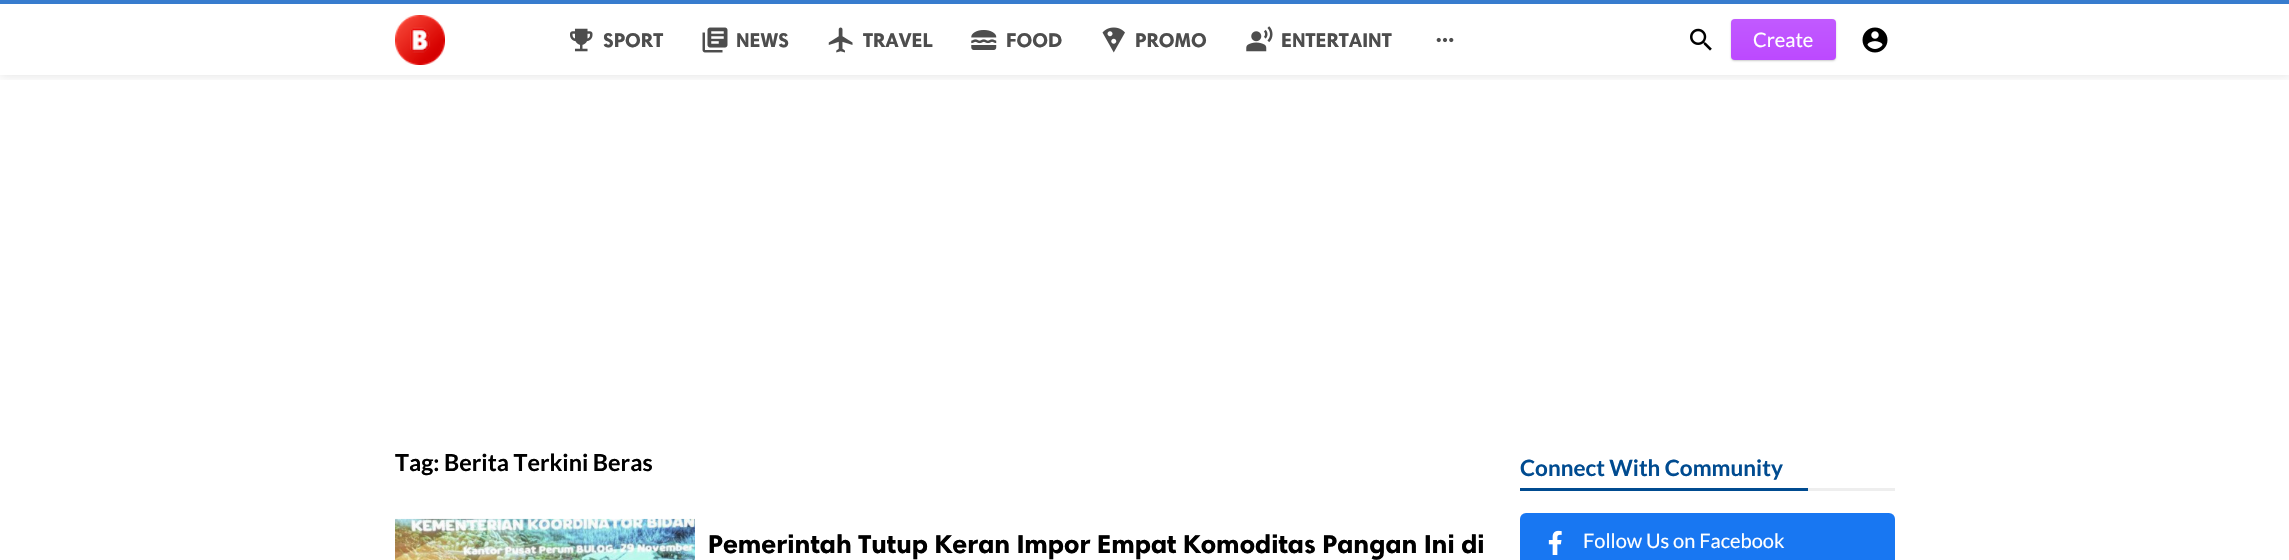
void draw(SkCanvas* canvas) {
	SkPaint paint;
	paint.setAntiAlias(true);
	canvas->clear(0xffffffff);
	canvas->save();
	canvas->clipRect(SkRect::MakeXYWH(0, 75, 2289, 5));
	paint.setColor(0x1a000000);
	paint.setMaskFilter(SkMaskFilter::MakeBlur(kNormal_SkBlurStyle, 5));
	canvas->drawRect(SkRect::MakeXYWH(0, 1, 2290, 75), paint);
	paint.setMaskFilter(nullptr);
	canvas->restore();
	paint.setColor(0xff377cce);
	canvas->drawRect(SkRect::MakeXYWH(0, 0, 2289, 4), paint);
	canvas->drawImageRect(SkImages::DeferredFromEncodedData(SkData::MakeFromFileName("img1.png")), SkRect::MakeXYWH(395, 15, 50, 50), SkSamplingOptions());
	canvas->drawImageRect(SkImages::DeferredFromEncodedData(SkData::MakeFromFileName("img2.png")), SkRect::MakeXYWH(570, 28, 23, 24), SkSamplingOptions());
	SkFont f1(fontMgr->matchFamilyStyle("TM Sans", SkFontStyle::Bold()), 20);
	f1.setSubpixel(true);
	paint.setColor(0xff4d4d4d);
	canvas->drawString("SPORT", 603, 47, f1, paint);
	canvas->drawImageRect(SkImages::DeferredFromEncodedData(SkData::MakeFromFileName("img3.png")), SkRect::MakeXYWH(702, 27, 26, 26), SkSamplingOptions());
	canvas->drawString("NEWS", 736, 47, f1, paint);
	canvas->drawImageRect(SkImages::DeferredFromEncodedData(SkData::MakeFromFileName("img4.png")), SkRect::MakeXYWH(828, 27, 25, 26), SkSamplingOptions());
	canvas->drawString("TRAVEL", 863, 47, f1, paint);
	canvas->drawImageRect(SkImages::DeferredFromEncodedData(SkData::MakeFromFileName("img5.png")), SkRect::MakeXYWH(971, 30, 26, 20), SkSamplingOptions());
	canvas->drawString("FOOD", 1006, 47, f1, paint);
	canvas->drawImageRect(SkImages::DeferredFromEncodedData(SkData::MakeFromFileName("img6.png")), SkRect::MakeXYWH(1102, 27, 23, 26), SkSamplingOptions());
	canvas->drawString("PROMO", 1135, 47, f1, paint);
	canvas->drawImageRect(SkImages::DeferredFromEncodedData(SkData::MakeFromFileName("img7.png")), SkRect::MakeXYWH(1246, 26, 27, 26), SkSamplingOptions());
	canvas->drawString("ENTERTAINT", 1281, 47, f1, paint);
	canvas->drawImageRect(SkImages::DeferredFromEncodedData(SkData::MakeFromFileName("img8.png")), SkRect::MakeXYWH(1436, 37, 18, 6), SkSamplingOptions());
	canvas->drawImageRect(SkImages::DeferredFromEncodedData(SkData::MakeFromFileName("img9.png")), SkRect::MakeXYWH(1690, 28, 22, 23), SkSamplingOptions());
	paint.setColor(0x33000000);
	paint.setMaskFilter(SkMaskFilter::MakeBlur(kNormal_SkBlurStyle, 1));
	canvas->drawRoundRect(SkRect::MakeXYWH(1731, 20, 105, 41), 4, 4, paint);
	paint.setMaskFilter(nullptr);
	{
		const SkColor colors[] = {0xffc15aff, 0xffbc49ff};
		const float stops[] = {0, 1};
		const SkPoint ends[] = {{1784, 19}, {1784, 60}};
		paint.setShader(SkGradientShader::MakeLinear(ends, colors, stops, 2, SkTileMode::kClamp));
		paint.setAlpha(255);
	}
	canvas->drawRoundRect(SkRect::MakeXYWH(1731, 19, 105, 41), 4, 4, paint);
	SkFont f2(fontMgr->matchFamilyStyle("Lato", SkFontStyle::Normal()), 20);
	f2.setSubpixel(true);
	paint.setShader(nullptr);
	paint.setColor(0xffffffff);
	canvas->drawString("Create", 1753, 47, f2, paint);
	canvas->drawImageRect(SkImages::DeferredFromEncodedData(SkData::MakeFromFileName("img10.png")), SkRect::MakeXYWH(1862, 27, 26, 26), SkSamplingOptions());
	SkFont f3(fontMgr->matchFamilyStyle("Lato", SkFontStyle::Bold()), 23.4);
	f3.setSubpixel(true);
	paint.setColor(0xff000000);
	canvas->drawString("Tag: Berita Terkini Beras", 395, 471, f3, paint);
	canvas->drawImageRect(SkImages::DeferredFromEncodedData(SkData::MakeFromFileName("img11.png")), SkRect::MakeXYWH(395, 518, 300, 42), SkSamplingOptions());
	SkFont f4(fontMgr->matchFamilyStyle("TM Sans", SkFontStyle::Bold()), 26.1);
	f4.setSubpixel(true);
	canvas->drawString("Pemerintah Tutup Keran Impor Empat Komoditas Pangan Ini di", 708, 553, f4, paint);
	paint.setColor(0xffeeeeee);
	canvas->drawRect(SkRect::MakeXYWH(1808, 488, 87, 3), paint);
	paint.setColor(0xff004b90);
	canvas->drawRect(SkRect::MakeXYWH(1520, 488, 288, 3), paint);
	SkFont f5(fontMgr->matchFamilyStyle("Lato", SkFontStyle::Bold()), 22.5);
	f5.setSubpixel(true);
	canvas->drawString("Connect With Community", 1520, 476, f5, paint);
	paint.setColor(0xff1877f2);
	canvas->drawRoundRect(SkRect::MakeXYWH(1520, 513, 375, 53), 6, 6, paint);
	canvas->drawImageRect(SkImages::DeferredFromEncodedData(SkData::MakeFromFileName("img12.png")), SkRect::MakeXYWH(1548, 530, 14, 25), SkSamplingOptions());
	paint.setColor(0xffffffff);
	canvas->drawString("Follow Us on Facebook", 1583, 548, f2, paint);
}
